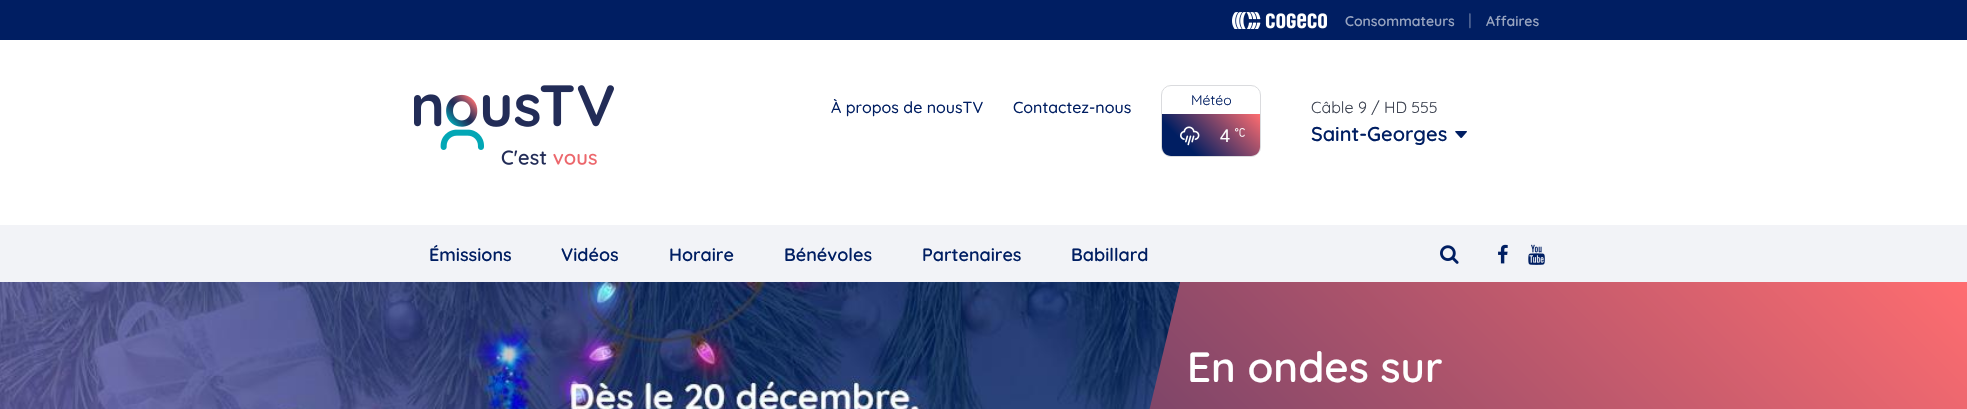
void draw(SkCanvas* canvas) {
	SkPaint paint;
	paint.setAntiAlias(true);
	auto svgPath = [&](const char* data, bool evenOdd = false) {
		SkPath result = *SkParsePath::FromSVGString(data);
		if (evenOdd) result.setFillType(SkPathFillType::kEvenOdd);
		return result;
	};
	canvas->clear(0xffffffff);
	paint.setColor(0xff001e62);
	canvas->drawRect(SkRect::MakeXYWH(0, 0, 1967, 40), paint);
	canvas->drawImageRect(SkImages::DeferredFromEncodedData(SkData::MakeFromFileName("img1.png")), SkRect::MakeXYWH(1232, 12, 95, 17), SkSamplingOptions());
	SkFont f1(fontMgr->matchFamilyStyle("Quicksand", SkFontStyle(600, SkFontStyle::kNormal_Width, SkFontStyle::kUpright_Slant)), 14);
	f1.setSubpixel(true);
	paint.setColor(0xff99a5c0);
	canvas->drawString("Consommateurs", 1345, 26, f1, paint);
	SkFont f2(fontMgr->matchFamilyStyle("Quicksand", SkFontStyle(600, SkFontStyle::kNormal_Width, SkFontStyle::kUpright_Slant)), 16);
	f2.setSubpixel(true);
	paint.setColor(0xff4d6291);
	canvas->drawString("|", 1468, 26, f2, paint);
	paint.setColor(0xff99a5c0);
	canvas->drawString("Affaires", 1486, 26, f1, paint);
	canvas->drawImageRect(SkImages::DeferredFromEncodedData(SkData::MakeFromFileName("img2.png")), SkRect::MakeXYWH(414, 85, 200, 80), SkSamplingOptions());
	SkFont f3(fontMgr->matchFamilyStyle("Quicksand", SkFontStyle(500, SkFontStyle::kNormal_Width, SkFontStyle::kUpright_Slant)), 16);
	f3.setSubpixel(true);
	paint.setColor(0xff001e62);
	canvas->drawString("À propos de nousTV", 831, 113, f3, paint);
	canvas->drawString("Contactez-nous", 1013, 113, f3, paint);
	paint.setStroke(true);
	paint.setStrokeWidth(1);
	paint.setColor(0xffdadbde);
	canvas->drawRoundRect(SkRect::MakeXYWH(1161.5, 85.5, 99, 71), 9.5, 9.5, paint);
	SkFont f4(fontMgr->matchFamilyStyle("Quicksand", SkFontStyle::Normal()), 14);
	f4.setSubpixel(true);
	paint.setStroke(false);
	paint.setColor(0xff001e62);
	canvas->drawString("Météo", 1191, 105, f4, paint);
	{
		const SkColor colors[] = {0xffff6d70, 0xff001e62, 0xff001e62};
		const float stops[] = {0, 0.75, 1};
		const SkPoint ends[] = {{1246, 100}, {1176, 170}};
		paint.setShader(SkGradientShader::MakeLinear(ends, colors, stops, 3, SkTileMode::kClamp));
		paint.setAlpha(255);
	}
	canvas->drawPath(svgPath("M1162 114H1260V147C1260 152 1256 156 1251 156H1171C1166 156 1162 152 1162 147Z"), paint);
	canvas->drawImageRect(SkImages::DeferredFromEncodedData(SkData::MakeFromFileName("img3.png")), SkRect::MakeXYWH(1180, 126, 20, 20), SkSamplingOptions());
	SkFont f5(fontMgr->matchFamilyStyle("Liberation Sans", SkFontStyle::Normal()), 18);
	f5.setSubpixel(true);
	paint.setShader(nullptr);
	paint.setColor(0xffffffff);
	canvas->drawString("4", 1220, 142, f5, paint);
	canvas->drawImageRect(SkImages::DeferredFromEncodedData(SkData::MakeFromFileName("img4.png")), SkRect::MakeXYWH(1235, 128, 10, 9), SkSamplingOptions());
	SkFont f6(fontMgr->matchFamilyStyle("Quicksand", SkFontStyle::Normal()), 16);
	f6.setSubpixel(true);
	paint.setColor(0xff3f4553);
	canvas->drawString("Câble 9 / HD 555", 1311, 113, f6, paint);
	canvas->drawImageRect(SkImages::DeferredFromEncodedData(SkData::MakeFromFileName("img5.png")), SkRect::MakeXYWH(1455, 131, 12, 7), SkSamplingOptions());
	SkFont f7(fontMgr->matchFamilyStyle("Quicksand", SkFontStyle(600, SkFontStyle::kNormal_Width, SkFontStyle::kUpright_Slant)), 20);
	f7.setSubpixel(true);
	paint.setColor(0xff001e62);
	canvas->drawString("Saint-Georges", 1311, 141, f7, paint);
	paint.setColor(0xfff2f3f7);
	canvas->drawRect(SkRect::MakeXYWH(0, 225, 1967, 57), paint);
	SkFont f8(fontMgr->matchFamilyStyle("Quicksand", SkFontStyle(600, SkFontStyle::kNormal_Width, SkFontStyle::kUpright_Slant)), 18);
	f8.setSubpixel(true);
	paint.setColor(0xff001e62);
	canvas->drawString("Émissions", 429, 261, f8, paint);
	canvas->drawString("Vidéos", 561, 261, f8, paint);
	canvas->drawString("Horaire", 669, 261, f8, paint);
	canvas->drawString("Bénévoles", 784, 261, f8, paint);
	canvas->drawString("Partenaires", 922, 261, f8, paint);
	canvas->drawString("Babillard", 1071, 261, f8, paint);
	canvas->drawImageRect(SkImages::DeferredFromEncodedData(SkData::MakeFromFileName("img6.png")), SkRect::MakeXYWH(1440, 245, 19, 19), SkSamplingOptions());
	canvas->drawImageRect(SkImages::DeferredFromEncodedData(SkData::MakeFromFileName("img7.png")), SkRect::MakeXYWH(1498, 244, 10, 20), SkSamplingOptions());
	canvas->drawImageRect(SkImages::DeferredFromEncodedData(SkData::MakeFromFileName("img8.png")), SkRect::MakeXYWH(1528, 244, 17, 21), SkSamplingOptions());
	{
		const SkColor colors[] = {0xffff6d70, 0xff001e62, 0xff001e62};
		const float stops[] = {0, 0.75, 1};
		const SkPoint ends[] = {{1610, -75}, {357, 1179}};
		paint.setShader(SkGradientShader::MakeLinear(ends, colors, stops, 3, SkTileMode::kClamp));
		paint.setAlpha(255);
	}
	canvas->drawRect(SkRect::MakeXYWH(1149, 282, 818, 127), paint);
	canvas->drawImageRect(SkImages::DeferredFromEncodedData(SkData::MakeFromFileName("img9.png")), SkRect::MakeXYWH(0, 282, 1180, 127), SkSamplingOptions());
	SkFont f9(fontMgr->matchFamilyStyle("Quicksand", SkFontStyle(600, SkFontStyle::kNormal_Width, SkFontStyle::kUpright_Slant)), 42);
	f9.setSubpixel(true);
	paint.setShader(nullptr);
	paint.setColor(0xffffffff);
	canvas->drawString("En ondes sur", 1187, 382, f9, paint);
}
